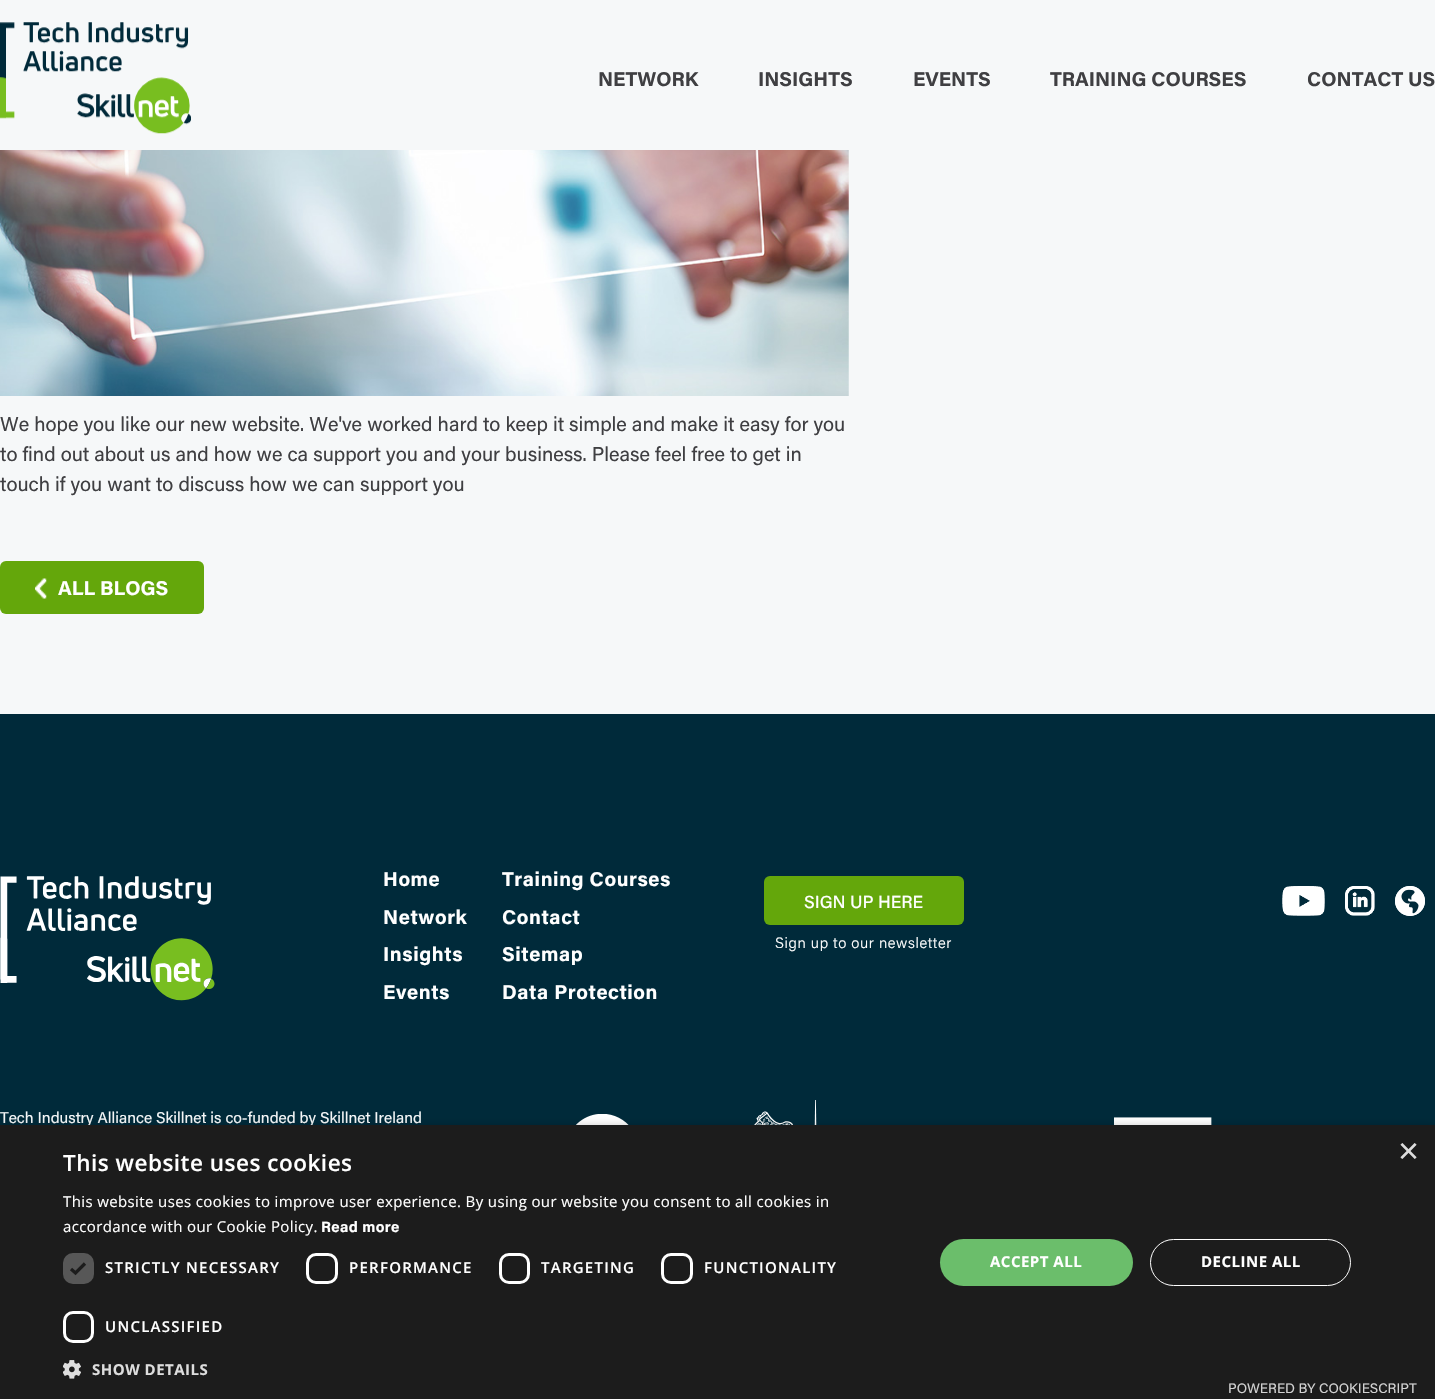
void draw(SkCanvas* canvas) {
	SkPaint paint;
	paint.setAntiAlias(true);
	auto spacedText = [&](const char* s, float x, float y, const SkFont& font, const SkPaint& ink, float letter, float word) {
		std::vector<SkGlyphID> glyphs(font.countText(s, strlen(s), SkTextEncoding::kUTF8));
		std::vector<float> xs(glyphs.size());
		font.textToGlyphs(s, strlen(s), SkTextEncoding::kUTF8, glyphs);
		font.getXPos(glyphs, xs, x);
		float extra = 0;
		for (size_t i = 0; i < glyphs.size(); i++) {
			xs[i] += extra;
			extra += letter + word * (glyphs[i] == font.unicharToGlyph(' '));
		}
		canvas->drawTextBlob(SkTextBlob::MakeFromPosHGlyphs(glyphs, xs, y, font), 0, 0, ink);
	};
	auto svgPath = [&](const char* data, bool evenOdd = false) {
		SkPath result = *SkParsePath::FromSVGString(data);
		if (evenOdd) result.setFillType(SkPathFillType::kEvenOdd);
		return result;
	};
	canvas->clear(0xfff6f8f9);
	canvas->drawImageRect(SkImages::DeferredFromEncodedData(SkData::MakeFromFileName("img1.png")), SkRect::MakeXYWH(0, 22, 191, 112), SkSamplingOptions());
	SkFont f1(fontMgr->matchFamilyStyle("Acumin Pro", SkFontStyle::Bold()), 20);
	f1.setSubpixel(true);
	paint.setColor(0xff3f3f42);
	canvas->drawString("NETWORK", 598, 86, f1, paint);
	canvas->drawString("INSIGHTS", 758, 86, f1, paint);
	canvas->drawString("EVENTS", 913, 86, f1, paint);
	canvas->drawString("TRAINING COURSES", 1050, 86, f1, paint);
	canvas->drawString("CONTACT US", 1307, 86, f1, paint);
	canvas->drawImageRect(SkImages::DeferredFromEncodedData(SkData::MakeFromFileName("img2.png")), SkRect::MakeXYWH(0, 150, 849, 246), SkSamplingOptions());
	SkFont f2(fontMgr->matchFamilyStyle("Acumin Pro", SkFontStyle::Normal()), 20);
	f2.setSubpixel(true);
	canvas->drawString("We hope you like our new website. We've worked hard to keep it simple and make it easy for you", 0, 431, f2, paint);
	canvas->drawString("to find out about us and how we ca support you and your business. Please feel free to get in", 0, 461, f2, paint);
	canvas->drawString("touch if you want to discuss how we can support you", 0, 491, f2, paint);
	paint.setColor(0xff64a70b);
	canvas->drawRoundRect(SkRect::MakeXYWH(0, 561, 204, 53), 6, 6, paint);
	canvas->drawImageRect(SkImages::DeferredFromEncodedData(SkData::MakeFromFileName("img3.png")), SkRect::MakeXYWH(35, 578, 12, 21), SkSamplingOptions());
	paint.setColor(0xffffffff);
	canvas->drawString("ALL BLOGS", 58, 595, f1, paint);
	paint.setColor(0xff002a3a);
	canvas->drawRect(SkRect::MakeXYWH(0, 714, 1435, 411), paint);
	canvas->drawImageRect(SkImages::DeferredFromEncodedData(SkData::MakeFromFileName("img4.png")), SkRect::MakeXYWH(0, 876, 215, 125), SkSamplingOptions());
	paint.setColor(0xffffffff);
	spacedText("Home", 383, 886, f1, paint, 0.6, 0);
	spacedText("Network", 383, 924, f1, paint, 0.6, 0);
	spacedText("Insights", 383, 961, f1, paint, 0.6, 0);
	spacedText("Events", 383, 999, f1, paint, 0.6, 0);
	spacedText("Training Courses", 502, 886, f1, paint, 0.6, 0);
	spacedText("Contact", 502, 924, f1, paint, 0.6, 0);
	spacedText("Sitemap", 502, 961, f1, paint, 0.6, 0);
	spacedText("Data Protection", 502, 999, f1, paint, 0.6, 0);
	paint.setColor(0xff64a70b);
	canvas->drawRoundRect(SkRect::MakeXYWH(764, 876, 200, 49), 6, 6, paint);
	SkFont f3(fontMgr->matchFamilyStyle("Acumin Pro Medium", SkFontStyle(500, SkFontStyle::kNormal_Width, SkFontStyle::kUpright_Slant)), 17.5);
	f3.setSubpixel(true);
	paint.setColor(0xffffffff);
	canvas->drawString("SIGN UP HERE", 804, 908, f3, paint);
	SkFont f4(fontMgr->matchFamilyStyle("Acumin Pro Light", SkFontStyle(300, SkFontStyle::kNormal_Width, SkFontStyle::kUpright_Slant)), 15);
	f4.setSubpixel(true);
	spacedText("Sign up to our newsletter", 775, 948, f4, paint, 0.6, 0);
	canvas->drawImageRect(SkImages::DeferredFromEncodedData(SkData::MakeFromFileName("img5.png")), SkRect::MakeXYWH(1282, 886, 43, 30), SkSamplingOptions());
	canvas->drawImageRect(SkImages::DeferredFromEncodedData(SkData::MakeFromFileName("img6.png")), SkRect::MakeXYWH(1282, 886, 43, 30), SkSamplingOptions());
	canvas->drawImageRect(SkImages::DeferredFromEncodedData(SkData::MakeFromFileName("img7.png")), SkRect::MakeXYWH(1345, 886, 30, 30), SkSamplingOptions());
	canvas->drawImageRect(SkImages::DeferredFromEncodedData(SkData::MakeFromFileName("img8.png")), SkRect::MakeXYWH(1345, 886, 30, 30), SkSamplingOptions());
	canvas->drawImageRect(SkImages::DeferredFromEncodedData(SkData::MakeFromFileName("img9.png")), SkRect::MakeXYWH(1395, 886, 30, 30), SkSamplingOptions());
	canvas->drawImageRect(SkImages::DeferredFromEncodedData(SkData::MakeFromFileName("img10.png")), SkRect::MakeXYWH(1395, 886, 30, 30), SkSamplingOptions());
	SkFont f5(fontMgr->matchFamilyStyle("Acumin Pro", SkFontStyle::Normal()), 15.6);
	f5.setSubpixel(true);
	paint.setColor(0xfff6f8f9);
	canvas->drawString("Tech Industry Alliance Skillnet is co-funded by Skillnet Ireland", 0, 1123, f5, paint);
	canvas->drawImageRect(SkImages::DeferredFromEncodedData(SkData::MakeFromFileName("img11.png")), SkRect::MakeXYWH(576, 1114, 53, 11), SkSamplingOptions());
	canvas->drawImageRect(SkImages::DeferredFromEncodedData(SkData::MakeFromFileName("img12.png")), SkRect::MakeXYWH(754, 1100, 63, 25), SkSamplingOptions());
	canvas->drawImageRect(SkImages::DeferredFromEncodedData(SkData::MakeFromFileName("img13.png")), SkRect::MakeXYWH(1114, 1117, 98, 8), SkSamplingOptions());
	paint.setColor(0x59000000);
	paint.setMaskFilter(SkMaskFilter::MakeBlur(kNormal_SkBlurStyle, 5));
	canvas->drawRect(SkRect::MakeXYWH(1, 1128, 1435, 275), paint);
	paint.setMaskFilter(nullptr);
	paint.setColor(0xff1c1c1c);
	canvas->drawRect(SkRect::MakeXYWH(0, 1125, 1435, 274), paint);
	SkFont f6(fontMgr->matchFamilyStyle("Liberation Sans", SkFontStyle::Normal()), 36);
	f6.setSubpixel(true);
	paint.setColor(0xffdddddd);
	canvas->drawString("×", 1398, 1163, f6, paint);
	SkFont f7(fontMgr->matchFamilyStyle("Open Sans", SkFontStyle(600, SkFontStyle::kNormal_Width, SkFontStyle::kUpright_Slant)), 22.5);
	f7.setSubpixel(true);
	paint.setColor(0xffffffff);
	spacedText("This website uses cookies", 63, 1171, f7, paint, 0.5, 0);
	SkFont f8(fontMgr->matchFamilyStyle("Open Sans", SkFontStyle::Normal()), 15);
	f8.setSubpixel(true);
	spacedText("This website uses cookies to improve user experience. By using our website you consent to all cookies in", 63, 1207, f8, paint, 0.38, 0);
	spacedText("accordance with our Cookie Policy.", 63, 1232, f8, paint, 0.38, 0);
	SkFont f9(fontMgr->matchFamilyStyle("Acumin Pro", SkFontStyle::Bold()), 15);
	f9.setSubpixel(true);
	spacedText("Read more", 321, 1232, f9, paint, 0.38, 0);
	paint.setColor(0xff575757);
	canvas->drawRoundRect(SkRect::MakeXYWH(63, 1253, 31, 31), 10, 10, paint);
	paint.setStroke(true);
	paint.setStrokeWidth(3.3);
	paint.setColor(0xff1c1c1c);
	canvas->drawPath(svgPath("M71 1269L75.5 1273L85 1263.5"), paint);
	SkFont f10(fontMgr->matchFamilyStyle("Open Sans", SkFontStyle(600, SkFontStyle::kNormal_Width, SkFontStyle::kUpright_Slant)), 15);
	f10.setSubpixel(true);
	paint.setStroke(false);
	paint.setColor(0xffffffff);
	spacedText("STRICTLY NECESSARY", 105, 1273, f10, paint, 1.25, 0);
	paint.setStroke(true);
	paint.setStrokeWidth(3);
	canvas->drawRoundRect(SkRect::MakeXYWH(307.5, 1254.5, 29, 28), 8.5, 8.5, paint);
	paint.setStroke(false);
	spacedText("PERFORMANCE", 349, 1273, f10, paint, 1.25, 0);
	paint.setStroke(true);
	canvas->drawRoundRect(SkRect::MakeXYWH(500.5, 1254.5, 28, 28), 8.5, 8.5, paint);
	paint.setStroke(false);
	spacedText("TARGETING", 541, 1273, f10, paint, 1.25, 0);
	paint.setStroke(true);
	canvas->drawRoundRect(SkRect::MakeXYWH(662.5, 1254.5, 29, 28), 8.5, 8.5, paint);
	paint.setStroke(false);
	spacedText("FUNCTIONALITY", 704, 1273, f10, paint, 1.25, 0);
	paint.setStroke(true);
	canvas->drawRoundRect(SkRect::MakeXYWH(64.5, 1312.5, 28, 29), 8.5, 8.5, paint);
	paint.setStroke(false);
	spacedText("UNCLASSIFIED", 105, 1332, f10, paint, 1.25, 0);
	canvas->drawImageRect(SkImages::DeferredFromEncodedData(SkData::MakeFromFileName("img14.png")), SkRect::MakeXYWH(63, 1360, 18, 19), SkSamplingOptions());
	SkFont f11(fontMgr->matchFamilyStyle("Open Sans", SkFontStyle::Bold()), 15);
	f11.setSubpixel(true);
	paint.setColor(0xffdddddd);
	spacedText("SHOW DETAILS", 92, 1375, f11, paint, 0.5, 0);
	paint.setColor(0xff6bbe6b);
	canvas->drawRoundRect(SkRect::MakeXYWH(940, 1239, 193, 47), 23.5, 23.5, paint);
	paint.setColor(0xffffffff);
	spacedText("ACCEPT ALL", 990, 1267, f11, paint, 0.5, 0);
	paint.setStroke(true);
	paint.setStrokeWidth(1);
	canvas->drawRoundRect(SkRect::MakeXYWH(1150.5, 1239.5, 200, 46), 23, 23, paint);
	paint.setStroke(false);
	spacedText("DECLINE ALL", 1201, 1267, f11, paint, 0.5, 0);
	SkFont f12(fontMgr->matchFamilyStyle("Acumin Pro", SkFontStyle::Normal()), 13.75);
	f12.setSubpixel(true);
	paint.setColor(0xffd2d2d2);
	canvas->drawString("POWERED BY COOKIESCRIPT", 1228, 1393, f12, paint);
}
